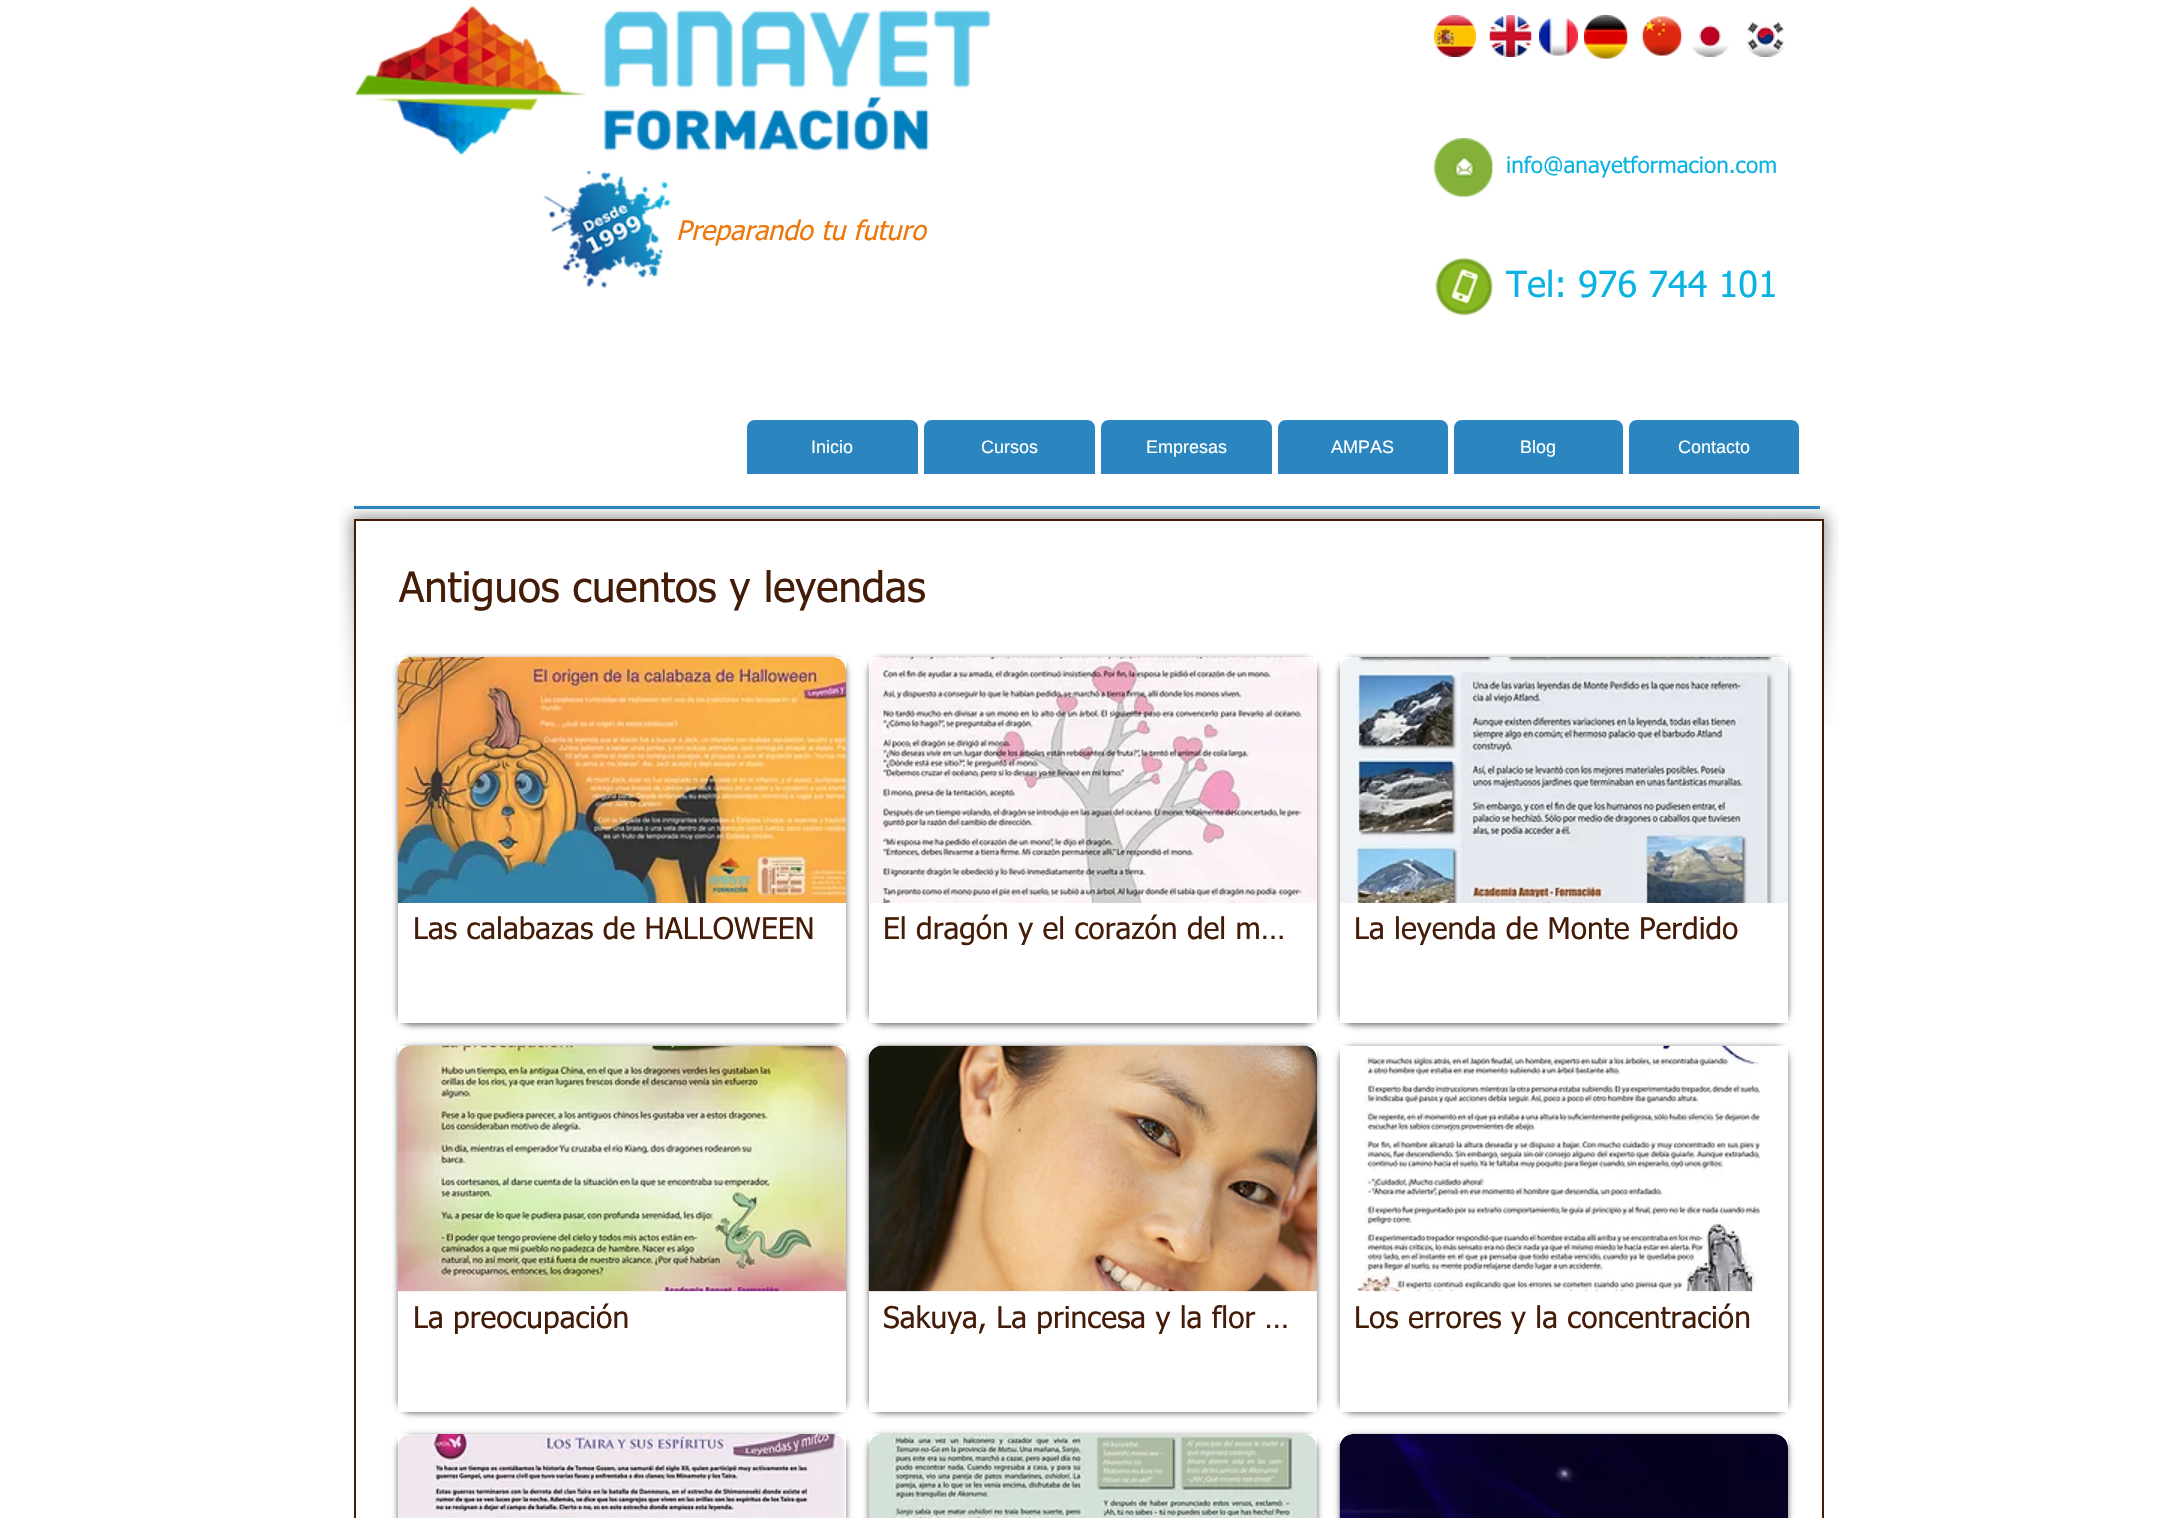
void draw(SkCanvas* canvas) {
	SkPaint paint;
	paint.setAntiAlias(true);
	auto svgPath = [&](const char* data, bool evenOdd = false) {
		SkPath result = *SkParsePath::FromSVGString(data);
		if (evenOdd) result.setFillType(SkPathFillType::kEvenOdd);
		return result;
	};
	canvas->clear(0xffffffff);
	canvas->drawImageRect(SkImages::DeferredFromEncodedData(SkData::MakeFromFileName("img1.png")), SkRect::MakeXYWH(355, 5, 635, 150), SkSamplingOptions());
	canvas->drawImageRect(SkImages::DeferredFromEncodedData(SkData::MakeFromFileName("img2.png")), SkRect::MakeXYWH(1434, 15, 42, 42), SkSamplingOptions());
	canvas->drawImageRect(SkImages::DeferredFromEncodedData(SkData::MakeFromFileName("img3.png")), SkRect::MakeXYWH(1489, 15, 43, 42), SkSamplingOptions());
	canvas->drawImageRect(SkImages::DeferredFromEncodedData(SkData::MakeFromFileName("img4.png")), SkRect::MakeXYWH(1539, 17, 39, 39), SkSamplingOptions());
	canvas->drawImageRect(SkImages::DeferredFromEncodedData(SkData::MakeFromFileName("img5.png")), SkRect::MakeXYWH(1584, 15, 44, 44), SkSamplingOptions());
	canvas->drawImageRect(SkImages::DeferredFromEncodedData(SkData::MakeFromFileName("img6.png")), SkRect::MakeXYWH(1642, 16, 40, 40), SkSamplingOptions());
	canvas->drawImageRect(SkImages::DeferredFromEncodedData(SkData::MakeFromFileName("img7.png")), SkRect::MakeXYWH(1692, 25, 37, 32), SkSamplingOptions());
	canvas->drawImageRect(SkImages::DeferredFromEncodedData(SkData::MakeFromFileName("img8.png")), SkRect::MakeXYWH(1746, 22, 39, 35), SkSamplingOptions());
	canvas->drawImageRect(SkImages::DeferredFromEncodedData(SkData::MakeFromFileName("img9.png")), SkRect::MakeXYWH(1434, 138, 59, 59), SkSamplingOptions());
	SkFont f1(fontMgr->matchFamilyStyle("tahoma", SkFontStyle::Normal()), 22.5);
	f1.setSubpixel(true);
	paint.setColor(0xff0bb3e3);
	canvas->drawString("info@anayetformacion.com", 1506, 173, f1, paint);
	canvas->drawImageRect(SkImages::DeferredFromEncodedData(SkData::MakeFromFileName("img10.png")), SkRect::MakeXYWH(543, 170, 128, 119), SkSamplingOptions());
	SkFont f2(fontMgr->matchFamilyStyle("tahoma", SkFontStyle::Italic()), 27);
	f2.setSubpixel(true);
	paint.setColor(0xffee780b);
	canvas->drawString("Preparando tu futuro", 676, 240, f2, paint);
	canvas->drawImageRect(SkImages::DeferredFromEncodedData(SkData::MakeFromFileName("img11.png")), SkRect::MakeXYWH(1435, 258, 58, 57), SkSamplingOptions());
	SkFont f3(fontMgr->matchFamilyStyle("tahoma", SkFontStyle::Normal()), 36);
	f3.setSubpixel(true);
	paint.setColor(0xff0bb3e3);
	canvas->drawString("Tel: 976 744 101", 1506, 297, f3, paint);
	paint.setColor(0xff2b86bf);
	canvas->drawPath(svgPath("M755 420H910C914.5 420 918 423.5 918 428V474H747V428C747 423.5 750.5 420 755 420Z"), paint);
	SkFont f4(fontMgr->matchFamilyStyle("Liberation Sans", SkFontStyle::Normal()), 18);
	f4.setSubpixel(true);
	paint.setColor(0xffffffff);
	canvas->drawString("Inicio", 811, 453, f4, paint);
	paint.setColor(0xff2b86bf);
	canvas->drawPath(svgPath("M932 420H1087C1091.5 420 1095 423.5 1095 428V474H924V428C924 423.5 927.5 420 932 420Z"), paint);
	paint.setColor(0xffffffff);
	canvas->drawString("Cursos", 981, 453, f4, paint);
	paint.setColor(0xff2b86bf);
	canvas->drawPath(svgPath("M1109 420H1264C1268.5 420 1272 423.5 1272 428V474H1101V428C1101 423.5 1104.5 420 1109 420Z"), paint);
	paint.setColor(0xffffffff);
	canvas->drawString("Empresas", 1146, 453, f4, paint);
	paint.setColor(0xff2b86bf);
	canvas->drawPath(svgPath("M1286 420H1440C1444.5 420 1448 423.5 1448 428V474H1278V428C1278 423.5 1281.5 420 1286 420Z"), paint);
	paint.setColor(0xffffffff);
	canvas->drawString("AMPAS", 1331, 453, f4, paint);
	paint.setColor(0xff2b86bf);
	canvas->drawPath(svgPath("M1462 420H1615C1619.5 420 1623 423.5 1623 428V474H1454V428C1454 423.5 1457.5 420 1462 420Z"), paint);
	paint.setColor(0xffffffff);
	canvas->drawString("Blog", 1520, 453, f4, paint);
	paint.setColor(0xff2b86bf);
	canvas->drawPath(svgPath("M1637 420H1791C1795.5 420 1799 423.5 1799 428V474H1629V428C1629 423.5 1632.5 420 1637 420Z"), paint);
	paint.setColor(0xffffffff);
	canvas->drawString("Contacto", 1678, 453, f4, paint);
	canvas->drawImageRect(SkImages::DeferredFromEncodedData(SkData::MakeFromFileName("img12.png")), SkRect::MakeXYWH(339, 504, 68, 221), SkSamplingOptions());
	canvas->drawImageRect(SkImages::DeferredFromEncodedData(SkData::MakeFromFileName("img13.png")), SkRect::MakeXYWH(406, 504, 1366, 15), SkSamplingOptions());
	canvas->drawImageRect(SkImages::DeferredFromEncodedData(SkData::MakeFromFileName("img14.png")), SkRect::MakeXYWH(1771, 504, 68, 221), SkSamplingOptions());
	paint.setColor(0xff2b86bf);
	canvas->drawRect(SkRect::MakeXYWH(354, 506, 1466, 3), paint);
	paint.setColor(0xffffffff);
	canvas->drawRect(SkRect::MakeXYWH(356, 521, 1466, 204), paint);
	paint.setStroke(true);
	paint.setStrokeWidth(2);
	paint.setColor(0xff441c08);
	canvas->drawRect(SkRect::MakeXYWH(355, 520, 1468, 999), paint);
	SkFont f5(fontMgr->matchFamilyStyle("tahoma", SkFontStyle::Normal()), 42);
	f5.setSubpixel(true);
	paint.setStroke(false);
	canvas->drawString("Antiguos cuentos y leyendas", 399, 602, f5, paint);
	paint.setColor(0x99000000);
	paint.setMaskFilter(SkMaskFilter::MakeBlur(kNormal_SkBlurStyle, 3));
	canvas->drawRoundRect(SkRect::MakeXYWH(398, 659, 448, 366), 14, 14, paint);
	paint.setMaskFilter(nullptr);
	paint.setColor(0xffffffff);
	canvas->drawRect(SkRect::MakeXYWH(398, 657, 448, 366), paint);
	canvas->drawImageRect(SkImages::DeferredFromEncodedData(SkData::MakeFromFileName("img15.png")), SkRect::MakeXYWH(397, 657, 449, 246), SkSamplingOptions());
	SkFont f6(fontMgr->matchFamilyStyle("tahoma", SkFontStyle::Normal()), 30);
	f6.setSubpixel(true);
	paint.setColor(0xff441c08);
	canvas->drawString("Las calabazas de HALLOWEEN", 413, 939, f6, paint);
	paint.setColor(0x99000000);
	paint.setMaskFilter(SkMaskFilter::MakeBlur(kNormal_SkBlurStyle, 3));
	canvas->drawRoundRect(SkRect::MakeXYWH(869, 659, 448, 366), 14, 14, paint);
	paint.setMaskFilter(nullptr);
	paint.setColor(0xffffffff);
	canvas->drawRect(SkRect::MakeXYWH(869, 657, 448, 366), paint);
	canvas->drawImageRect(SkImages::DeferredFromEncodedData(SkData::MakeFromFileName("img16.png")), SkRect::MakeXYWH(868, 657, 449, 246), SkSamplingOptions());
	paint.setColor(0xff441c08);
	canvas->drawString("El dragón y el corazón del m…", 883, 939, f6, paint);
	paint.setColor(0x99000000);
	paint.setMaskFilter(SkMaskFilter::MakeBlur(kNormal_SkBlurStyle, 3));
	canvas->drawRoundRect(SkRect::MakeXYWH(1340, 659, 448, 366), 14, 14, paint);
	paint.setMaskFilter(nullptr);
	paint.setColor(0xffffffff);
	canvas->drawRect(SkRect::MakeXYWH(1340, 657, 448, 366), paint);
	canvas->drawImageRect(SkImages::DeferredFromEncodedData(SkData::MakeFromFileName("img17.png")), SkRect::MakeXYWH(1340, 657, 448, 246), SkSamplingOptions());
	paint.setColor(0xff441c08);
	canvas->drawString("La leyenda de Monte Perdido", 1354, 939, f6, paint);
	paint.setColor(0x99000000);
	paint.setMaskFilter(SkMaskFilter::MakeBlur(kNormal_SkBlurStyle, 3));
	canvas->drawRoundRect(SkRect::MakeXYWH(398, 1047, 448, 366), 14, 14, paint);
	paint.setMaskFilter(nullptr);
	paint.setColor(0xffffffff);
	canvas->drawRect(SkRect::MakeXYWH(398, 1046, 448, 366), paint);
	canvas->drawImageRect(SkImages::DeferredFromEncodedData(SkData::MakeFromFileName("img18.png")), SkRect::MakeXYWH(397, 1045, 449, 247), SkSamplingOptions());
	paint.setColor(0xff441c08);
	canvas->drawString("La preocupación", 413, 1328, f6, paint);
	paint.setColor(0x99000000);
	paint.setMaskFilter(SkMaskFilter::MakeBlur(kNormal_SkBlurStyle, 3));
	canvas->drawRoundRect(SkRect::MakeXYWH(869, 1047, 448, 366), 14, 14, paint);
	paint.setMaskFilter(nullptr);
	paint.setColor(0xffffffff);
	canvas->drawRect(SkRect::MakeXYWH(869, 1046, 448, 366), paint);
	canvas->drawImageRect(SkImages::DeferredFromEncodedData(SkData::MakeFromFileName("img19.png")), SkRect::MakeXYWH(868, 1045, 449, 247), SkSamplingOptions());
	paint.setColor(0xff441c08);
	canvas->drawString("Sakuya, La princesa y la flor …", 883, 1328, f6, paint);
	paint.setColor(0x99000000);
	paint.setMaskFilter(SkMaskFilter::MakeBlur(kNormal_SkBlurStyle, 3));
	canvas->drawRoundRect(SkRect::MakeXYWH(1340, 1047, 448, 366), 14, 14, paint);
	paint.setMaskFilter(nullptr);
	paint.setColor(0xffffffff);
	canvas->drawRect(SkRect::MakeXYWH(1340, 1046, 448, 366), paint);
	canvas->drawImageRect(SkImages::DeferredFromEncodedData(SkData::MakeFromFileName("img20.png")), SkRect::MakeXYWH(1339, 1045, 421, 247), SkSamplingOptions());
	paint.setColor(0xff441c08);
	canvas->drawString("Los errores y la concentración", 1354, 1328, f6, paint);
	paint.setColor(0x99000000);
	paint.setMaskFilter(SkMaskFilter::MakeBlur(kNormal_SkBlurStyle, 3));
	canvas->drawRoundRect(SkRect::MakeXYWH(398, 1436, 448, 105), 14, 14, paint);
	paint.setMaskFilter(nullptr);
	paint.setColor(0xffffffff);
	canvas->drawRect(SkRect::MakeXYWH(398, 1434, 448, 14), paint);
	canvas->drawImageRect(SkImages::DeferredFromEncodedData(SkData::MakeFromFileName("img21.png")), SkRect::MakeXYWH(398, 1434, 448, 84), SkSamplingOptions());
	paint.setColor(0x99000000);
	paint.setMaskFilter(SkMaskFilter::MakeBlur(kNormal_SkBlurStyle, 3));
	canvas->drawRoundRect(SkRect::MakeXYWH(869, 1436, 448, 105), 14, 14, paint);
	paint.setMaskFilter(nullptr);
	paint.setColor(0xffffffff);
	canvas->drawRect(SkRect::MakeXYWH(869, 1434, 448, 14), paint);
	canvas->drawImageRect(SkImages::DeferredFromEncodedData(SkData::MakeFromFileName("img22.png")), SkRect::MakeXYWH(869, 1434, 448, 84), SkSamplingOptions());
	paint.setColor(0x99000000);
	paint.setMaskFilter(SkMaskFilter::MakeBlur(kNormal_SkBlurStyle, 3));
	canvas->drawRoundRect(SkRect::MakeXYWH(1340, 1436, 448, 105), 14, 14, paint);
	paint.setMaskFilter(nullptr);
	paint.setColor(0xffffffff);
	canvas->drawRect(SkRect::MakeXYWH(1340, 1434, 448, 14), paint);
	canvas->drawImageRect(SkImages::DeferredFromEncodedData(SkData::MakeFromFileName("img23.png")), SkRect::MakeXYWH(1339, 1434, 449, 84), SkSamplingOptions());
}
